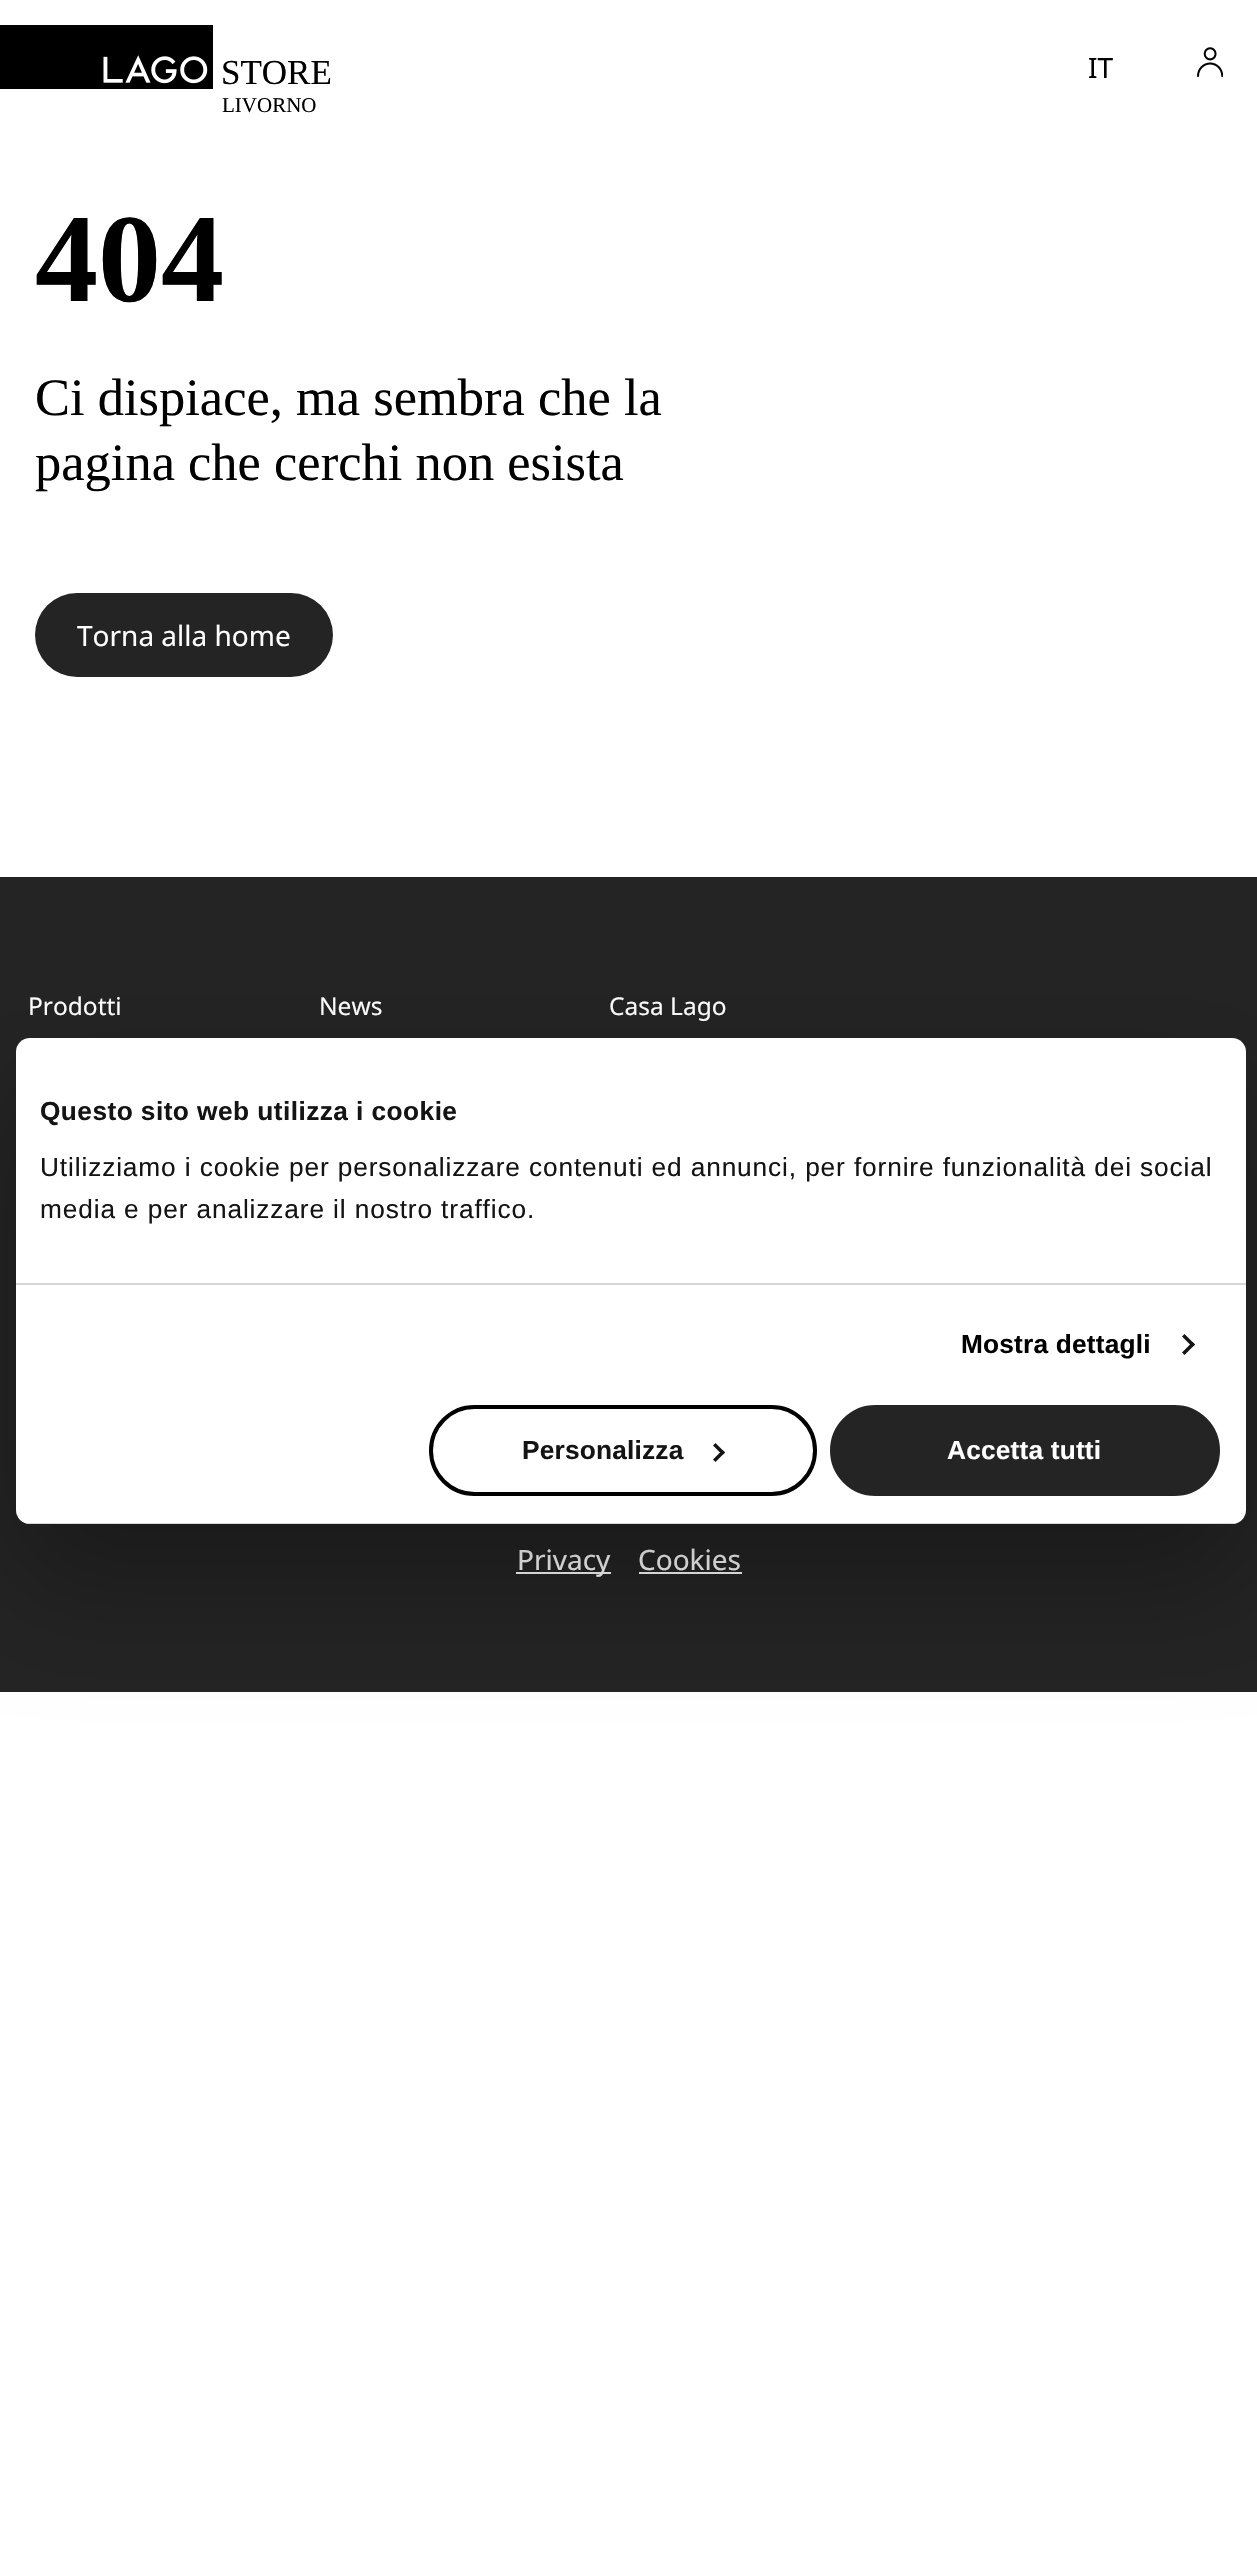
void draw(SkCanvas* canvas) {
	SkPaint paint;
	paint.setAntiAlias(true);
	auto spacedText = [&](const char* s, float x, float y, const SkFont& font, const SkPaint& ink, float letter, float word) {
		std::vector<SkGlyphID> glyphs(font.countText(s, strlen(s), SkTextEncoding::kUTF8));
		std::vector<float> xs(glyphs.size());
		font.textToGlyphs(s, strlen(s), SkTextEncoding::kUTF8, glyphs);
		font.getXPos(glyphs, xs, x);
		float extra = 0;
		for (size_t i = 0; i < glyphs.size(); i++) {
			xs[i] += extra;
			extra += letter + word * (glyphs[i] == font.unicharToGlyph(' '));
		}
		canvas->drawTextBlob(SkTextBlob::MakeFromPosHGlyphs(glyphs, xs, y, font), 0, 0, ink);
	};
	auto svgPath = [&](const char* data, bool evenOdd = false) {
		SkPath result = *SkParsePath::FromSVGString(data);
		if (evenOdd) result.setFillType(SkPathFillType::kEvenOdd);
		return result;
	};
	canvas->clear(0xffffffff);
	canvas->drawImageRect(SkImages::DeferredFromEncodedData(SkData::MakeFromFileName("img1.png")), SkRect::MakeXYWH(0, 25, 213, 64), SkSamplingOptions());
	SkFont f1(fontMgr->matchFamilyStyle("Liberation Serif", SkFontStyle::Normal()), 35);
	f1.setSubpixel(true);
	paint.setColor(0xff000000);
	canvas->drawString("STORE", 221, 84, f1, paint);
	SkFont f2(fontMgr->matchFamilyStyle("Liberation Serif", SkFontStyle::Normal()), 21);
	f2.setSubpixel(true);
	canvas->drawString("LIVORNO", 222, 112, f2, paint);
	SkFont f3(fontMgr->matchFamilyStyle("Noto Sans", SkFontStyle::Normal()), 28);
	f3.setSubpixel(true);
	canvas->drawString("IT", 1088, 78, f3, paint);
	canvas->drawImageRect(SkImages::DeferredFromEncodedData(SkData::MakeFromFileName("img2.png")), SkRect::MakeXYWH(1197, 47, 26, 30), SkSamplingOptions());
	SkFont f4(fontMgr->matchFamilyStyle("Liberation Serif", SkFontStyle::Bold()), 126);
	f4.setSubpixel(true);
	canvas->drawString("404", 35, 301, f4, paint);
	SkFont f5(fontMgr->matchFamilyStyle("Liberation Serif", SkFontStyle::Normal()), 52.5);
	f5.setSubpixel(true);
	canvas->drawString("Ci dispiace, ma sembra che la", 35, 415, f5, paint);
	canvas->drawString("pagina che cerchi non esista", 35, 480, f5, paint);
	paint.setColor(0xff242424);
	canvas->drawRoundRect(SkRect::MakeXYWH(35, 593, 298, 84), 42, 42, paint);
	paint.setColor(0xffffffff);
	canvas->drawString("Torna alla home", 77, 646, f3, paint);
	paint.setColor(0xff242424);
	canvas->drawRect(SkRect::MakeXYWH(0, 877, 1257, 815), paint);
	SkFont f6(fontMgr->matchFamilyStyle("Noto Sans", SkFontStyle::Normal()), 24.5);
	f6.setSubpixel(true);
	paint.setColor(0xffffffff);
	canvas->drawString("Prodotti", 28, 1015, f6, paint);
	canvas->drawString("News", 319, 1015, f6, paint);
	canvas->drawString("Casa Lago", 609, 1015, f6, paint);
	canvas->drawRect(SkRect::MakeXYWH(516, 1572, 95, 2), paint);
	canvas->drawString("Privacy", 517, 1570, f3, paint);
	canvas->drawString("Cookies", 638, 1570, f3, paint);
	canvas->drawRect(SkRect::MakeXYWH(639, 1572, 103, 2), paint);
	paint.setColor(0x4d000000);
	paint.setMaskFilter(SkMaskFilter::MakeBlur(kNormal_SkBlurStyle, 59.5));
	canvas->drawRoundRect(SkRect::MakeXYWH(16, 1094, 1230, 486), 14, 14, paint);
	paint.setMaskFilter(nullptr);
	paint.setColor(0xffffffff);
	canvas->drawRoundRect(SkRect::MakeXYWH(16, 1038, 1230, 486), 14, 14, paint);
	paint.setColor(0xffd6d6d6);
	canvas->drawRect(SkRect::MakeXYWH(16, 1283, 1230, 2), paint);
	SkFont f7(fontMgr->matchFamilyStyle("Liberation Sans", SkFontStyle::Bold()), 26.25);
	f7.setSubpixel(true);
	paint.setColor(0xff141414);
	spacedText("Questo sito web utilizza i cookie", 40, 1120, f7, paint, 0.45, 0);
	SkFont f8(fontMgr->matchFamilyStyle("Liberation Sans", SkFontStyle::Normal()), 26.25);
	f8.setSubpixel(true);
	spacedText("Utilizziamo i cookie per personalizzare contenuti ed annunci, per fornire funzionalità dei social", 40, 1176, f8, paint, 0.88, 0);
	spacedText("media e per analizzare il nostro traffico.", 40, 1218, f8, paint, 0.88, 0);
	paint.setColor(0xff000000);
	spacedText("Mostra dettagli", 961, 1353, f7, paint, 0.2, 0);
	paint.setColor(0xff141414);
	canvas->drawPath(svgPath("M1184.5 1334L1195 1344.5L1192.5 1347L1182 1336.5Z"), paint);
	canvas->drawPath(svgPath("M1192.5 1342L1195 1344.5L1184.5 1355L1182 1352.5Z"), paint);
	canvas->save();
	canvas->clipPath(svgPath("M30 1038H1232C1239.5 1038 1246 1044.5 1246 1052V1510C1246 1517.5 1239.5 1524 1232 1524H30C22.5 1524 16 1517.5 16 1510V1052C16 1044.5 22.5 1038 30 1038Z"), true);
	paint.setColor(0xffd6d6d6);
	canvas->drawRect(SkRect::MakeXYWH(25, 1523, 1212, 1), paint);
	canvas->restore();
	paint.setStroke(true);
	paint.setStrokeWidth(4);
	paint.setColor(0xff000000);
	canvas->drawRoundRect(SkRect::MakeXYWH(431, 1407, 384, 87), 43.5, 43.5, paint);
	paint.setStroke(false);
	paint.setColor(0xff141414);
	spacedText("Personalizza", 522, 1459, f7, paint, 0.2, 0);
	canvas->drawPath(svgPath("M715.5 1443L725 1452.5L722.5 1455L713 1445.5Z"), paint);
	canvas->drawPath(svgPath("M722.5 1450L725 1452.5L715.5 1462L713 1459.5Z"), paint);
	paint.setColor(0xff242424);
	canvas->drawRoundRect(SkRect::MakeXYWH(832, 1407, 386, 87), 43.5, 43.5, paint);
	paint.setStroke(true);
	canvas->drawRoundRect(SkRect::MakeXYWH(832, 1407, 386, 87), 43.5, 43.5, paint);
	paint.setStroke(false);
	paint.setColor(0xffffffff);
	spacedText("Accetta tutti", 947, 1459, f7, paint, 0.2, 0);
}
